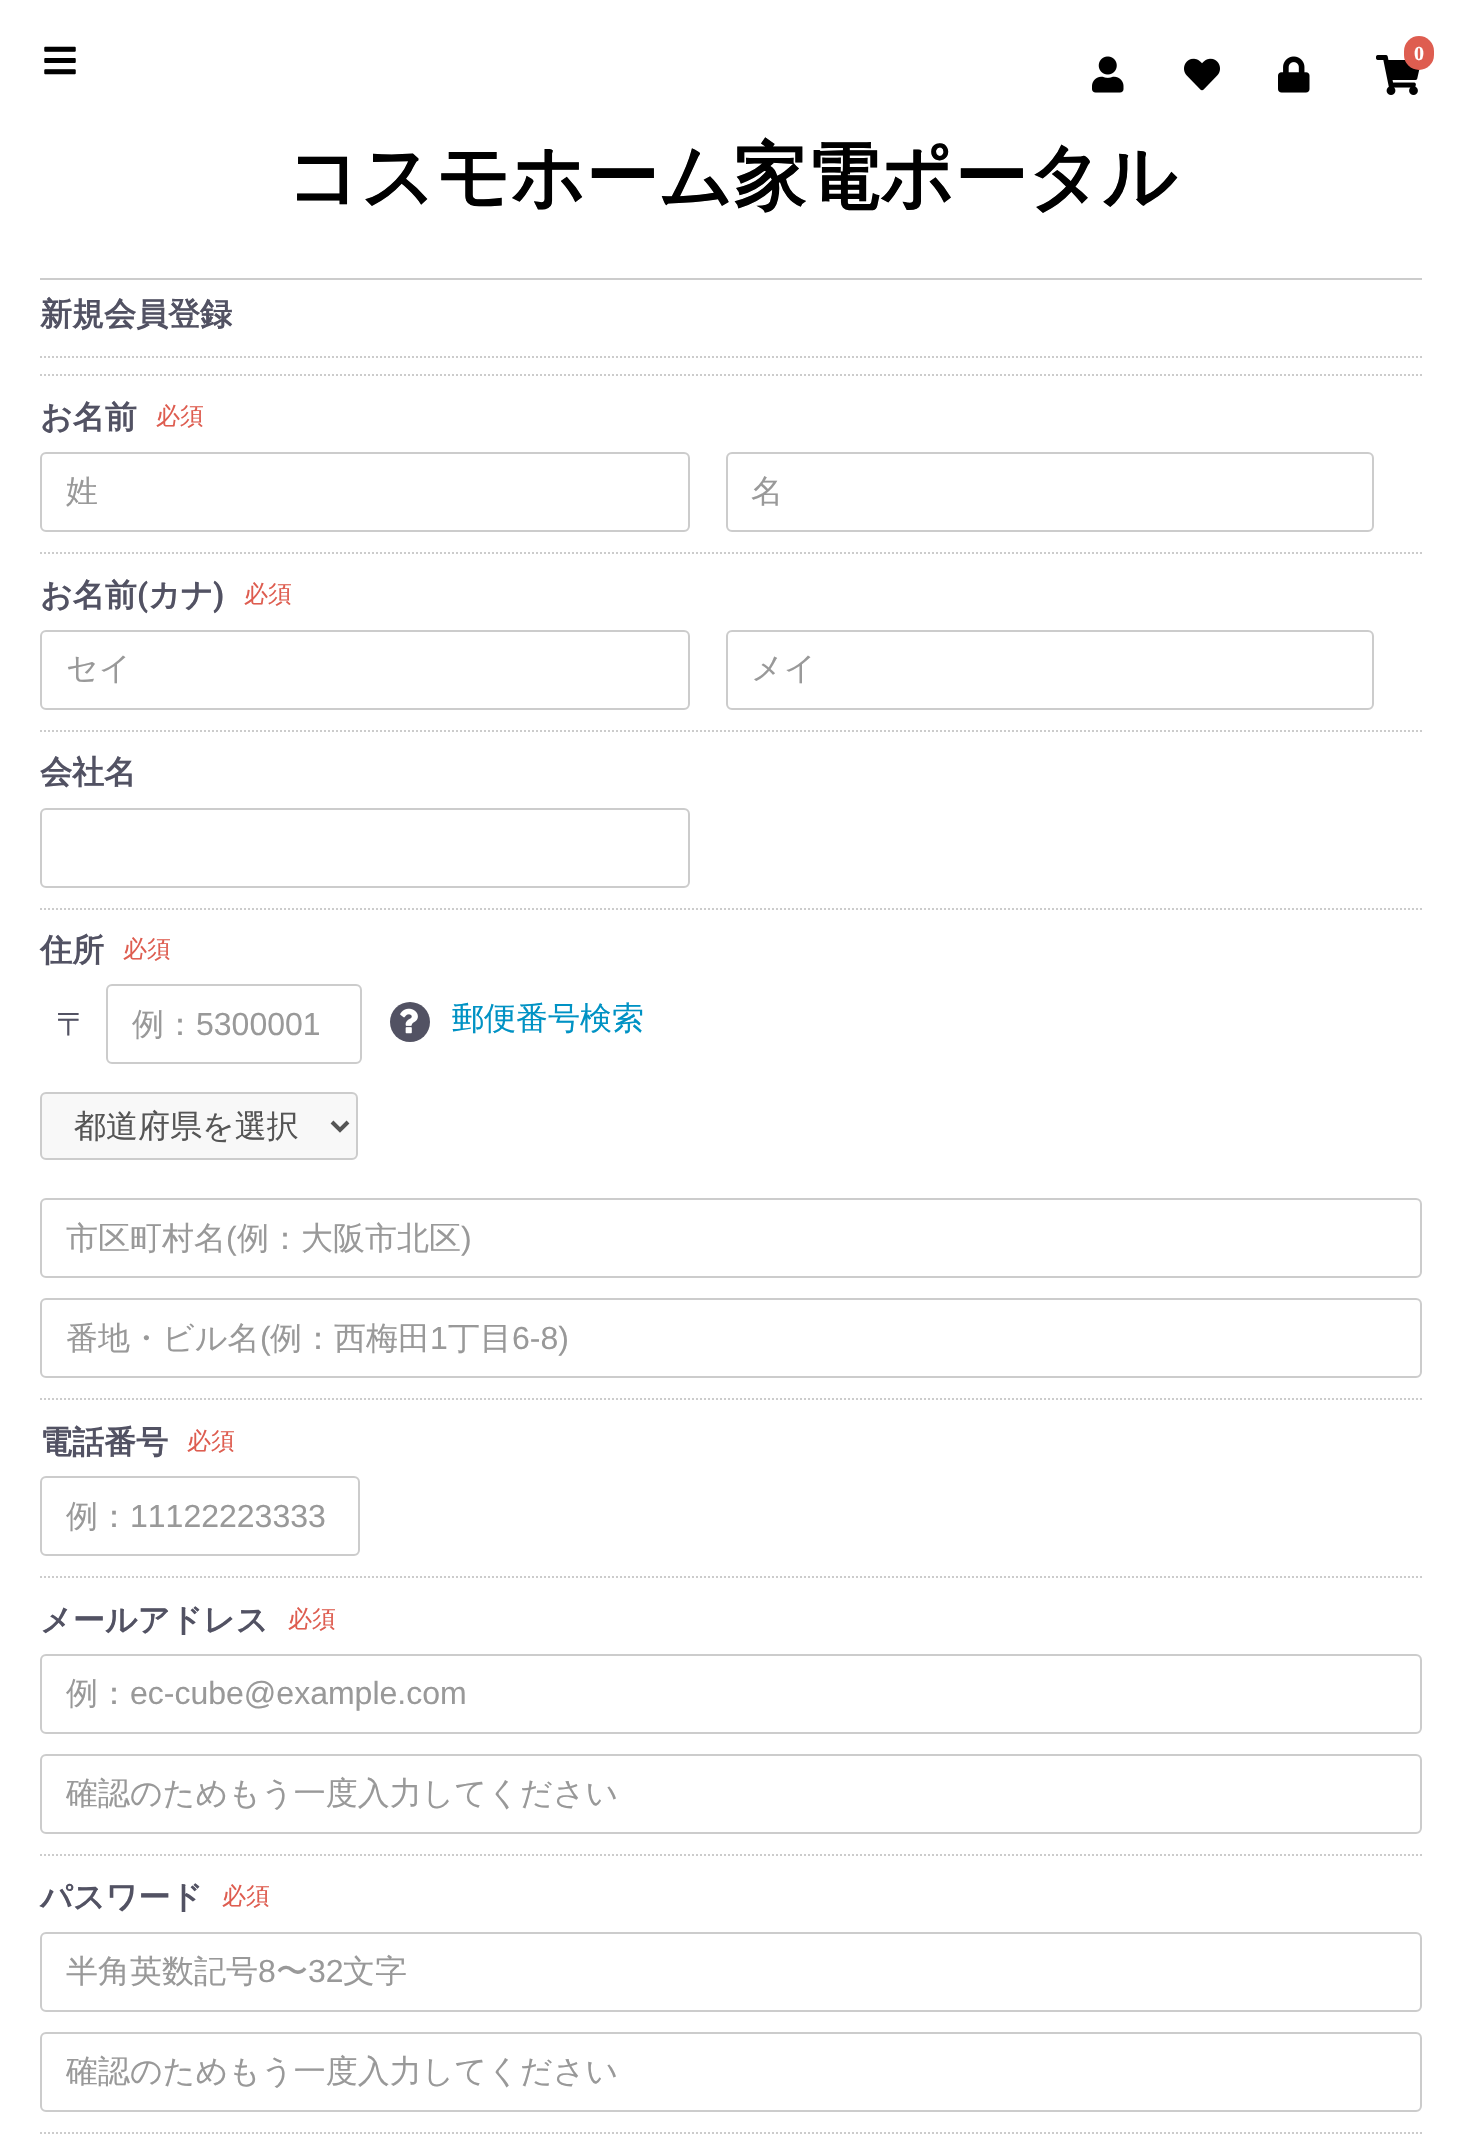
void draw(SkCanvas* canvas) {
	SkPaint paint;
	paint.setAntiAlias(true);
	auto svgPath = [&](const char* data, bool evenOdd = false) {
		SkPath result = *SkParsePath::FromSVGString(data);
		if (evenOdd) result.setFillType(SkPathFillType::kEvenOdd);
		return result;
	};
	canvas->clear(0xffffffff);
	canvas->drawImageRect(SkImages::DeferredFromEncodedData(SkData::MakeFromFileName("img1.png")), SkRect::MakeXYWH(44, 46, 32, 29), SkSamplingOptions());
	canvas->drawImageRect(SkImages::DeferredFromEncodedData(SkData::MakeFromFileName("img2.png")), SkRect::MakeXYWH(1376, 55, 44, 40), SkSamplingOptions());
	paint.setColor(0xffde5d50);
	canvas->drawRoundRect(SkRect::MakeXYWH(1404, 36, 30, 34), 15, 15, paint);
	SkFont f1(fontMgr->matchFamilyStyle("Liberation Serif", SkFontStyle::Bold()), 20);
	f1.setSubpixel(true);
	paint.setColor(0xffffffff);
	canvas->drawString("0", 1414, 60, f1, paint);
	canvas->drawImageRect(SkImages::DeferredFromEncodedData(SkData::MakeFromFileName("img3.png")), SkRect::MakeXYWH(1092, 56, 32, 37), SkSamplingOptions());
	canvas->drawImageRect(SkImages::DeferredFromEncodedData(SkData::MakeFromFileName("img4.png")), SkRect::MakeXYWH(1184, 58, 36, 33), SkSamplingOptions());
	canvas->drawImageRect(SkImages::DeferredFromEncodedData(SkData::MakeFromFileName("img5.png")), SkRect::MakeXYWH(1278, 56, 32, 37), SkSamplingOptions());
	SkFont f2(fontMgr->matchFamilyStyle("WenQuanYi Zen Hei", SkFontStyle::Bold()), 73.1);
	f2.setSubpixel(true);
	paint.setColor(0xff000000);
	canvas->drawString("コスモホーム家電ポータル", 286, 202, f2, paint);
	paint.setColor(0xffcccccc);
	canvas->drawRect(SkRect::MakeXYWH(40, 278, 1382, 2), paint);
	paint.setStroke(true);
	paint.setStrokeWidth(2);
	paint.setPathEffect(SkDashPathEffect::Make({{2, 2}}, 0));
	canvas->drawPath(svgPath("M40 357H1422"), paint);
	paint.setPathEffect(nullptr);
	SkFont f3(fontMgr->matchFamilyStyle("WenQuanYi Zen Hei", SkFontStyle::Bold()), 32);
	f3.setSubpixel(true);
	paint.setStroke(false);
	paint.setColor(0xff525263);
	canvas->drawString("新規会員登録", 40, 325, f3, paint);
	paint.setStroke(true);
	paint.setColor(0xffcccccc);
	paint.setPathEffect(SkDashPathEffect::Make({{2, 2}}, 0));
	canvas->drawPath(svgPath("M40 375H1422"), paint);
	paint.setPathEffect(nullptr);
	paint.setPathEffect(SkDashPathEffect::Make({{2, 2}}, 0));
	canvas->drawPath(svgPath("M40 553H1422"), paint);
	paint.setPathEffect(nullptr);
	paint.setStroke(false);
	paint.setColor(0xff525263);
	canvas->drawString("お名前", 40, 428, f3, paint);
	SkFont f4(fontMgr->matchFamilyStyle("WenQuanYi Zen Hei", SkFontStyle(500, SkFontStyle::kNormal_Width, SkFontStyle::kUpright_Slant)), 24);
	f4.setSubpixel(true);
	paint.setColor(0xffde5d50);
	canvas->drawString("必須", 156, 424, f4, paint);
	paint.setStroke(true);
	paint.setColor(0xffcccccc);
	canvas->drawRoundRect(SkRect::MakeXYWH(41, 453, 648, 78), 5, 5, paint);
	SkFont f5(fontMgr->matchFamilyStyle("WenQuanYi Zen Hei", SkFontStyle(500, SkFontStyle::kNormal_Width, SkFontStyle::kUpright_Slant)), 32);
	f5.setSubpixel(true);
	paint.setStroke(false);
	paint.setColor(0xff999999);
	canvas->drawString("姓", 66, 502, f5, paint);
	paint.setStroke(true);
	paint.setColor(0xffcccccc);
	canvas->drawRoundRect(SkRect::MakeXYWH(727, 453, 646, 78), 5, 5, paint);
	paint.setStroke(false);
	paint.setColor(0xff999999);
	canvas->drawString("名", 751, 502, f5, paint);
	paint.setStroke(true);
	paint.setColor(0xffcccccc);
	paint.setPathEffect(SkDashPathEffect::Make({{2, 2}}, 0));
	canvas->drawPath(svgPath("M40 731H1422"), paint);
	paint.setPathEffect(nullptr);
	paint.setStroke(false);
	paint.setColor(0xff525263);
	canvas->drawString("お名前", 40, 606, f3, paint);
	SkFont f6(fontMgr->matchFamilyStyle("Roboto", SkFontStyle::Bold()), 32);
	f6.setSubpixel(true);
	canvas->drawString("(", 137, 606, f6, paint);
	canvas->drawString("カナ", 148, 606, f3, paint);
	canvas->drawString(")", 213, 606, f6, paint);
	paint.setColor(0xffde5d50);
	canvas->drawString("必須", 244, 602, f4, paint);
	paint.setStroke(true);
	paint.setColor(0xffcccccc);
	canvas->drawRoundRect(SkRect::MakeXYWH(41, 631, 648, 78), 5, 5, paint);
	paint.setStroke(false);
	paint.setColor(0xff999999);
	canvas->drawString("セイ", 66, 679, f5, paint);
	paint.setStroke(true);
	paint.setColor(0xffcccccc);
	canvas->drawRoundRect(SkRect::MakeXYWH(727, 631, 646, 78), 5, 5, paint);
	paint.setStroke(false);
	paint.setColor(0xff999999);
	canvas->drawString("メイ", 751, 679, f5, paint);
	paint.setStroke(true);
	paint.setColor(0xffcccccc);
	paint.setPathEffect(SkDashPathEffect::Make({{2, 2}}, 0));
	canvas->drawPath(svgPath("M40 909H1422"), paint);
	paint.setPathEffect(nullptr);
	paint.setStroke(false);
	paint.setColor(0xff525263);
	canvas->drawString("会社名", 40, 783, f3, paint);
	paint.setStroke(true);
	paint.setColor(0xffcccccc);
	canvas->drawRoundRect(SkRect::MakeXYWH(41, 809, 648, 78), 5, 5, paint);
	paint.setPathEffect(SkDashPathEffect::Make({{2, 2}}, 0));
	canvas->drawPath(svgPath("M40 1399H1422"), paint);
	paint.setPathEffect(nullptr);
	paint.setStroke(false);
	paint.setColor(0xff525263);
	canvas->drawString("住所", 40, 961, f3, paint);
	paint.setColor(0xffde5d50);
	canvas->drawString("必須", 123, 957, f4, paint);
	paint.setColor(0xff525263);
	canvas->drawString("〒", 56, 1035, f5, paint);
	paint.setStroke(true);
	paint.setColor(0xffcccccc);
	canvas->drawRoundRect(SkRect::MakeXYWH(107, 985, 254, 78), 5, 5, paint);
	paint.setStroke(false);
	paint.setColor(0xff999999);
	canvas->drawString("例：", 132, 1035, f5, paint);
	SkFont f7(fontMgr->matchFamilyStyle("Liberation Sans", SkFontStyle::Normal()), 32);
	f7.setSubpixel(true);
	canvas->drawString("5300001", 196, 1035, f7, paint);
	paint.setColor(0xff525263);
	canvas->drawCircle(410, 1022, 20, paint);
	canvas->drawImageRect(SkImages::DeferredFromEncodedData(SkData::MakeFromFileName("img6.png")), SkRect::MakeXYWH(400, 1008, 18, 26), SkSamplingOptions());
	paint.setColor(0xff0092c4);
	canvas->drawString("郵便番号検索", 452, 1029, f5, paint);
	paint.setColor(0xfff8f8f8);
	canvas->drawRoundRect(SkRect::MakeXYWH(41, 1093, 316, 66), 5, 5, paint);
	paint.setStroke(true);
	paint.setColor(0xffcccccc);
	canvas->drawRoundRect(SkRect::MakeXYWH(41, 1093, 316, 66), 5, 5, paint);
	paint.setStrokeWidth(4);
	paint.setColor(0xff555555);
	canvas->drawPath(svgPath("M332 1122L340 1130L348 1122"), paint);
	paint.setStroke(false);
	canvas->drawString("都道府県を選択", 74, 1137, f5, paint);
	paint.setStroke(true);
	paint.setStrokeWidth(2);
	paint.setColor(0xffcccccc);
	canvas->drawRoundRect(SkRect::MakeXYWH(41, 1199, 1380, 78), 5, 5, paint);
	paint.setStroke(false);
	paint.setColor(0xff999999);
	canvas->drawString("市区町村名", 66, 1249, f5, paint);
	canvas->drawString("(", 226, 1249, f7, paint);
	canvas->drawString("例：大阪市北区", 237, 1249, f5, paint);
	canvas->drawString(")", 461, 1249, f7, paint);
	paint.setStroke(true);
	paint.setColor(0xffcccccc);
	canvas->drawRoundRect(SkRect::MakeXYWH(41, 1299, 1380, 78), 5, 5, paint);
	paint.setStroke(false);
	paint.setColor(0xff999999);
	canvas->drawString("番地・ビル名", 66, 1349, f5, paint);
	canvas->drawString("(", 260, 1349, f7, paint);
	canvas->drawString("例：西梅田", 270, 1349, f5, paint);
	canvas->drawString("1", 430, 1349, f7, paint);
	canvas->drawString("丁目", 448, 1349, f5, paint);
	canvas->drawString("6-8)", 512, 1349, f7, paint);
	paint.setStroke(true);
	paint.setColor(0xffcccccc);
	paint.setPathEffect(SkDashPathEffect::Make({{2, 2}}, 0));
	canvas->drawPath(svgPath("M40 1577H1422"), paint);
	paint.setPathEffect(nullptr);
	paint.setStroke(false);
	paint.setColor(0xff525263);
	canvas->drawString("電話番号", 40, 1453, f3, paint);
	paint.setColor(0xffde5d50);
	canvas->drawString("必須", 187, 1449, f4, paint);
	paint.setStroke(true);
	paint.setColor(0xffcccccc);
	canvas->drawRoundRect(SkRect::MakeXYWH(41, 1477, 318, 78), 5, 5, paint);
	paint.setStroke(false);
	paint.setColor(0xff999999);
	canvas->drawString("例：", 66, 1527, f5, paint);
	canvas->drawString("11122223333", 130, 1527, f7, paint);
	paint.setStroke(true);
	paint.setColor(0xffcccccc);
	paint.setPathEffect(SkDashPathEffect::Make({{2, 2}}, 0));
	canvas->drawPath(svgPath("M40 1855H1422"), paint);
	paint.setPathEffect(nullptr);
	paint.setStroke(false);
	paint.setColor(0xff525263);
	canvas->drawString("メールアドレス", 40, 1631, f3, paint);
	paint.setColor(0xffde5d50);
	canvas->drawString("必須", 288, 1627, f4, paint);
	paint.setStroke(true);
	paint.setColor(0xffcccccc);
	canvas->drawRoundRect(SkRect::MakeXYWH(41, 1655, 1380, 78), 5, 5, paint);
	paint.setStroke(false);
	paint.setColor(0xff999999);
	canvas->drawString("例：", 66, 1704, f5, paint);
	canvas->drawString("ec-cube@example.com", 130, 1704, f7, paint);
	paint.setStroke(true);
	paint.setColor(0xffcccccc);
	canvas->drawRoundRect(SkRect::MakeXYWH(41, 1755, 1380, 78), 5, 5, paint);
	paint.setStroke(false);
	paint.setColor(0xff999999);
	canvas->drawString("確認のためもう一度入力してください", 66, 1804, f5, paint);
	paint.setStroke(true);
	paint.setColor(0xffcccccc);
	paint.setPathEffect(SkDashPathEffect::Make({{2, 2}}, 0));
	canvas->drawPath(svgPath("M40 2133H1422"), paint);
	paint.setPathEffect(nullptr);
	paint.setStroke(false);
	paint.setColor(0xff525263);
	canvas->drawString("パスワード", 40, 1908, f3, paint);
	paint.setColor(0xffde5d50);
	canvas->drawString("必須", 222, 1904, f4, paint);
	paint.setStroke(true);
	paint.setColor(0xffcccccc);
	canvas->drawRoundRect(SkRect::MakeXYWH(41, 1933, 1380, 78), 5, 5, paint);
	paint.setStroke(false);
	paint.setColor(0xff999999);
	canvas->drawString("半角英数記号", 66, 1982, f5, paint);
	canvas->drawString("8", 258, 1982, f7, paint);
	canvas->drawString("〜", 276, 1982, f5, paint);
	canvas->drawString("32", 308, 1982, f7, paint);
	canvas->drawString("文字", 343, 1982, f5, paint);
	paint.setStroke(true);
	paint.setColor(0xffcccccc);
	canvas->drawRoundRect(SkRect::MakeXYWH(41, 2033, 1380, 78), 5, 5, paint);
	paint.setStroke(false);
	paint.setColor(0xff999999);
	canvas->drawString("確認のためもう一度入力してください", 66, 2082, f5, paint);
}
